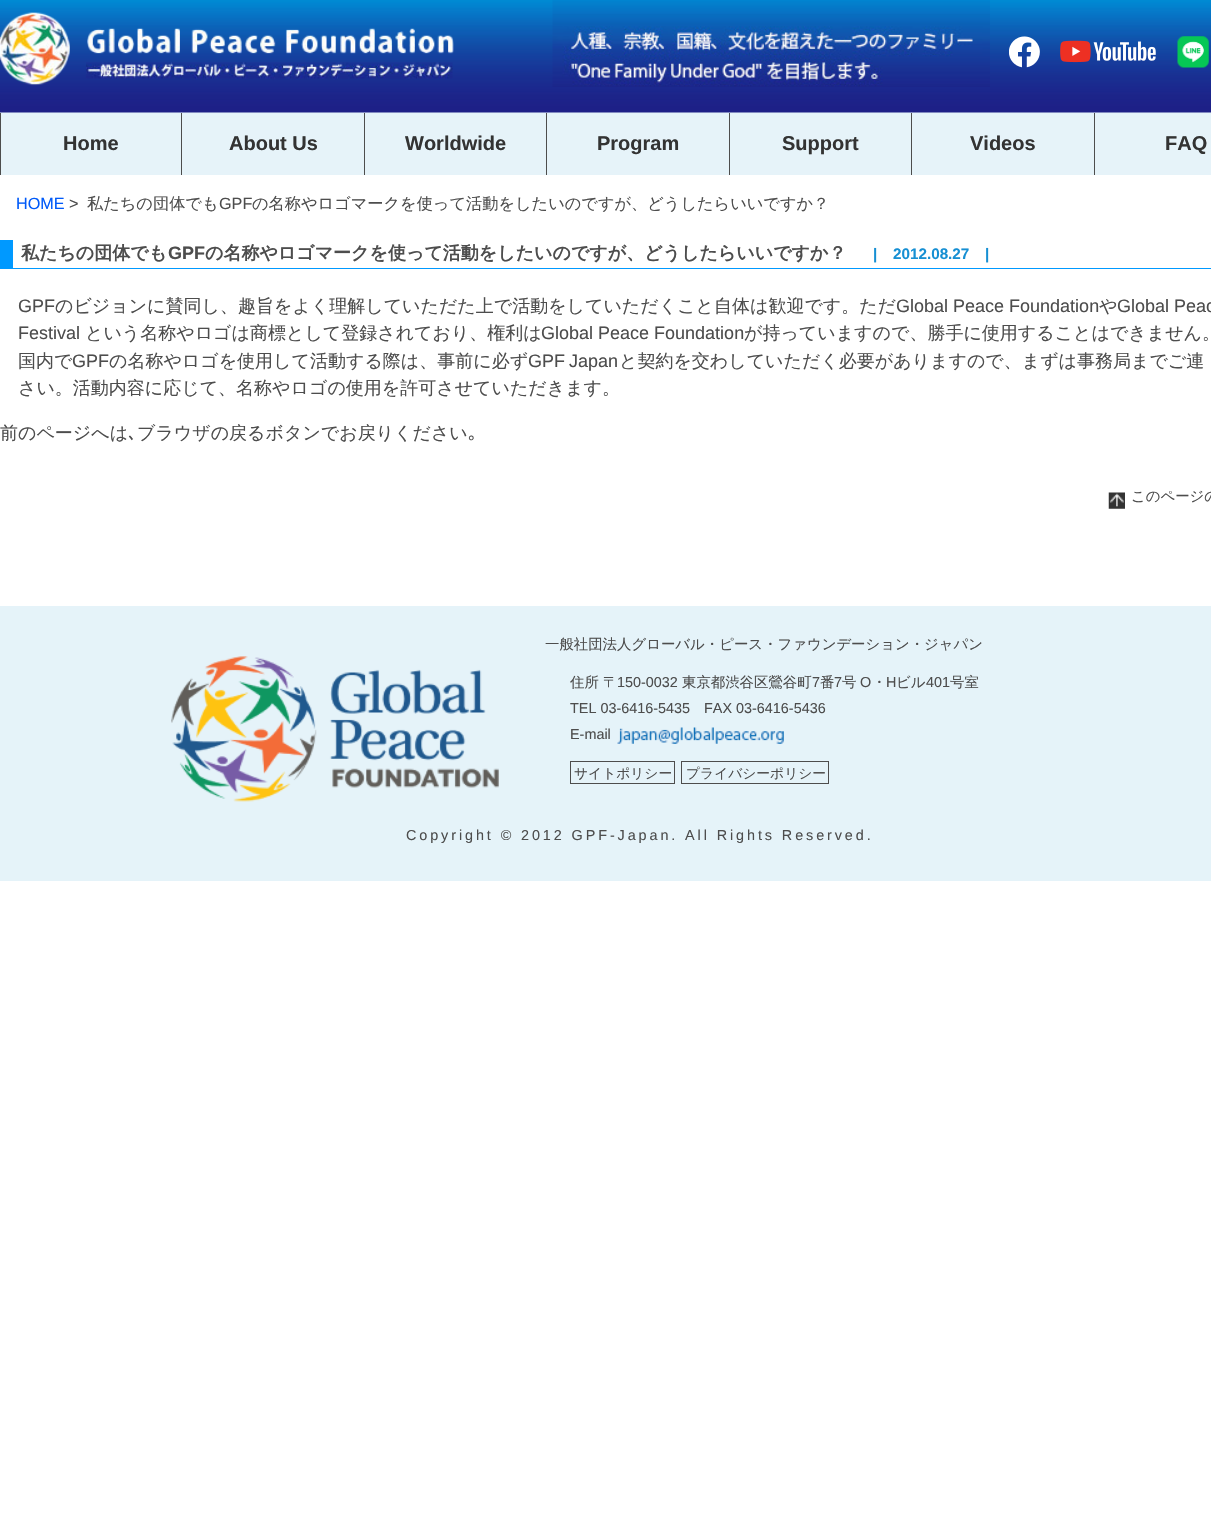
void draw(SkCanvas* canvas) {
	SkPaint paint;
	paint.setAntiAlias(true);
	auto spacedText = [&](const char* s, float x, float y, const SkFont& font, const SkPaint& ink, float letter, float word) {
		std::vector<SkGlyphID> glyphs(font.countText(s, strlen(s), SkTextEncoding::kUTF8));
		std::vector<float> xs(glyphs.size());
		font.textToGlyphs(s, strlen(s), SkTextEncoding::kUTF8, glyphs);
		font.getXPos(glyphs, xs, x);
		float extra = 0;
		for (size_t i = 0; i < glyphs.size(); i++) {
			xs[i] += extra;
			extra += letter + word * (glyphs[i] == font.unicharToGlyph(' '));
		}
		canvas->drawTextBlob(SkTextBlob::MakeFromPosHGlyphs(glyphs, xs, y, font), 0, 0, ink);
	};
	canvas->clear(0xffffffff);
	canvas->drawImageRect(SkImages::DeferredFromEncodedData(SkData::MakeFromFileName("img1.png")), SkRect::MakeXYWH(0, 0, 1211, 175), SkSamplingOptions());
	canvas->drawImageRect(SkImages::DeferredFromEncodedData(SkData::MakeFromFileName("img2.png")), SkRect::MakeXYWH(0, 12, 454, 74), SkSamplingOptions());
	canvas->drawImageRect(SkImages::DeferredFromEncodedData(SkData::MakeFromFileName("img3.png")), SkRect::MakeXYWH(552, 0, 438, 87), SkSamplingOptions());
	canvas->drawImageRect(SkImages::DeferredFromEncodedData(SkData::MakeFromFileName("img4.png")), SkRect::MakeXYWH(1009, 36, 31, 32), SkSamplingOptions());
	canvas->drawImageRect(SkImages::DeferredFromEncodedData(SkData::MakeFromFileName("img5.png")), SkRect::MakeXYWH(1060, 40, 96, 23), SkSamplingOptions());
	canvas->drawImageRect(SkImages::DeferredFromEncodedData(SkData::MakeFromFileName("img6.png")), SkRect::MakeXYWH(1177, 36, 32, 32), SkSamplingOptions());
	paint.setColor(0xff4d4d4d);
	canvas->drawRect(SkRect::MakeXYWH(181, 113, 1, 62), paint);
	canvas->drawRect(SkRect::MakeXYWH(0, 113, 1, 62), paint);
	SkFont f1(fontMgr->matchFamilyStyle("Liberation Sans", SkFontStyle::Bold()), 20);
	f1.setSubpixel(true);
	paint.setColor(0xff333333);
	canvas->drawString("Home", 63, 150, f1, paint);
	paint.setColor(0xff4d4d4d);
	canvas->drawRect(SkRect::MakeXYWH(364, 113, 1, 62), paint);
	paint.setColor(0xff333333);
	canvas->drawString("About Us", 229, 150, f1, paint);
	paint.setColor(0xff4d4d4d);
	canvas->drawRect(SkRect::MakeXYWH(546, 113, 1, 62), paint);
	paint.setColor(0xff333333);
	canvas->drawString("Worldwide", 405, 150, f1, paint);
	paint.setColor(0xff4d4d4d);
	canvas->drawRect(SkRect::MakeXYWH(729, 113, 1, 62), paint);
	paint.setColor(0xff333333);
	canvas->drawString("Program", 597, 150, f1, paint);
	paint.setColor(0xff4d4d4d);
	canvas->drawRect(SkRect::MakeXYWH(911, 113, 1, 62), paint);
	paint.setColor(0xff333333);
	canvas->drawString("Support", 782, 150, f1, paint);
	paint.setColor(0xff4d4d4d);
	canvas->drawRect(SkRect::MakeXYWH(1094, 113, 1, 62), paint);
	paint.setColor(0xff333333);
	canvas->drawString("Videos", 970, 150, f1, paint);
	canvas->drawString("FAQ", 1165, 150, f1, paint);
	SkFont f2(fontMgr->matchFamilyStyle("Liberation Sans", SkFontStyle::Normal()), 16.2);
	f2.setSubpixel(true);
	paint.setColor(0xff005af9);
	canvas->drawString("HOME", 16, 209, f2, paint);
	paint.setColor(0xff4d4d4d);
	canvas->drawString(">", 69, 209, f2, paint);
	SkFont f3(fontMgr->matchFamilyStyle("WenQuanYi Zen Hei", SkFontStyle(500, SkFontStyle::kNormal_Width, SkFontStyle::kUpright_Slant)), 16.2);
	f3.setSubpixel(true);
	canvas->drawString("私たちの団体でも", 87, 209, f3, paint);
	canvas->drawString("GPF", 219, 209, f2, paint);
	canvas->drawString("の名称やロゴマークを使って活動をしたいのですが、どうしたらいいですか？", 252, 209, f3, paint);
	paint.setColor(0xff0099ff);
	canvas->drawRect(SkRect::MakeXYWH(13, 268, 1198, 1), paint);
	canvas->drawRect(SkRect::MakeXYWH(0, 240, 13, 29), paint);
	SkFont f4(fontMgr->matchFamilyStyle("WenQuanYi Zen Hei", SkFontStyle::Bold()), 18);
	f4.setSubpixel(true);
	paint.setColor(0xff4d4d4d);
	canvas->drawString("私たちの団体でも", 21, 259, f4, paint);
	SkFont f5(fontMgr->matchFamilyStyle("Liberation Sans", SkFontStyle::Bold()), 18);
	f5.setSubpixel(true);
	canvas->drawString("GPF", 168, 259, f5, paint);
	canvas->drawString("の名称やロゴマークを使って活動をしたいのですが、どうしたらいいですか？", 205, 259, f4, paint);
	SkFont f6(fontMgr->matchFamilyStyle("Liberation Sans", SkFontStyle::Bold()), 15.25);
	f6.setSubpixel(true);
	paint.setColor(0xff168fd3);
	canvas->drawString("|", 873, 259, f6, paint);
	canvas->drawString("2012.08.27", 893, 259, f6, paint);
	canvas->drawString("|", 985, 259, f6, paint);
	SkFont f7(fontMgr->matchFamilyStyle("Liberation Sans", SkFontStyle::Normal()), 18);
	f7.setSubpixel(true);
	paint.setColor(0xff4d4d4d);
	canvas->drawString("GPF", 18, 312, f7, paint);
	SkFont f8(fontMgr->matchFamilyStyle("WenQuanYi Zen Hei", SkFontStyle(500, SkFontStyle::kNormal_Width, SkFontStyle::kUpright_Slant)), 18);
	f8.setSubpixel(true);
	canvas->drawString("のビジョンに賛同し、趣旨をよく理解していただた上で活動をしていただくこと自体は歓迎です。ただ", 55, 312, f8, paint);
	canvas->drawString("Global Peace Foundation", 896, 312, f7, paint);
	canvas->drawString("や", 1099, 312, f8, paint);
	canvas->drawString("Global Peac", 1117, 312, f7, paint);
	canvas->drawString("Festival", 18, 339, f7, paint);
	canvas->drawString("という名称やロゴは商標として登録されており、権利は", 85, 339, f8, paint);
	canvas->drawString("Global Peace Foundation", 541, 339, f7, paint);
	canvas->drawString("が持っていますので、勝手に使用することはできません。", 744, 339, f8, paint);
	canvas->drawString("国内で", 18, 367, f8, paint);
	canvas->drawString("GPF", 72, 367, f7, paint);
	canvas->drawString("の名称やロゴを使用して活動する際は、事前に必ず", 109, 367, f8, paint);
	spacedText("GPF Japan", 528, 367, f7, paint, 0, -1);
	canvas->drawString("と契約を交わしていただく必要がありますので、まずは事務局までご連", 619, 367, f8, paint);
	canvas->drawString("さい。活動内容に応じて、名称やロゴの使用を許可させていただきます。", 18, 394, f8, paint);
	canvas->drawString("前のページへは", 0, 439, f8, paint);
	SkFont f9(fontMgr->matchFamilyStyle("IPAPGothic", SkFontStyle::Normal()), 18);
	f9.setSubpixel(true);
	canvas->drawString("､", 128, 439, f9, paint);
	canvas->drawString("ブラウザの戻るボタンでお戻りください", 137, 439, f8, paint);
	canvas->drawString("｡", 468, 439, f9, paint);
	canvas->drawImageRect(SkImages::DeferredFromEncodedData(SkData::MakeFromFileName("img7.png")), SkRect::MakeXYWH(1108, 492, 17, 17), SkSamplingOptions());
	SkFont f10(fontMgr->matchFamilyStyle("WenQuanYi Zen Hei", SkFontStyle(500, SkFontStyle::kNormal_Width, SkFontStyle::kUpright_Slant)), 14.4);
	f10.setSubpixel(true);
	canvas->drawString("このページの", 1131, 501, f10, paint);
	paint.setColor(0xffe5f3f9);
	canvas->drawRect(SkRect::MakeXYWH(0, 606, 1211, 275), paint);
	canvas->drawImageRect(SkImages::DeferredFromEncodedData(SkData::MakeFromFileName("img8.png")), SkRect::MakeXYWH(171, 656, 328, 146), SkSamplingOptions());
	paint.setColor(0xff4d4d4d);
	canvas->drawString("一般社団法人グローバル・ピース・ファウンデーション・ジャパン", 545, 649, f10, paint);
	canvas->drawString("住所", 570, 687, f10, paint);
	canvas->drawString("〒", 603, 687, f10, paint);
	SkFont f11(fontMgr->matchFamilyStyle("Liberation Sans", SkFontStyle::Normal()), 14.4);
	f11.setSubpixel(true);
	canvas->drawString("150-0032", 617, 687, f11, paint);
	canvas->drawString("東京都渋谷区鶯谷町", 682, 687, f10, paint);
	canvas->drawString("7", 812, 687, f11, paint);
	canvas->drawString("番", 820, 687, f10, paint);
	canvas->drawString("7", 834, 687, f11, paint);
	canvas->drawString("号", 842, 687, f10, paint);
	canvas->drawString("O", 860, 687, f11, paint);
	canvas->drawString("・", 872, 687, f10, paint);
	canvas->drawString("H", 886, 687, f11, paint);
	canvas->drawString("ビル", 896, 687, f10, paint);
	canvas->drawString("401", 926, 687, f11, paint);
	canvas->drawString("号室", 950, 687, f10, paint);
	canvas->drawString("TEL 03-6416-5435", 570, 713, f11, paint);
	canvas->drawString("FAX 03-6416-5436", 704, 713, f11, paint);
	canvas->drawString("E-mail", 570, 739, f11, paint);
	canvas->drawImageRect(SkImages::DeferredFromEncodedData(SkData::MakeFromFileName("img9.png")), SkRect::MakeXYWH(617, 727, 167, 17), SkSamplingOptions());
	paint.setStroke(true);
	paint.setStrokeWidth(1);
	canvas->drawRect(SkRect::MakeXYWH(570.5, 761.5, 104, 22), paint);
	SkFont f12(fontMgr->matchFamilyStyle("WenQuanYi Zen Hei", SkFontStyle(500, SkFontStyle::kNormal_Width, SkFontStyle::kUpright_Slant)), 13.75);
	f12.setSubpixel(true);
	paint.setStroke(false);
	canvas->drawString("サイトポリシー", 574, 778, f12, paint);
	paint.setStroke(true);
	canvas->drawRect(SkRect::MakeXYWH(681.5, 761.5, 147, 22), paint);
	paint.setStroke(false);
	canvas->drawString("プライバシーポリシー", 686, 778, f12, paint);
	spacedText("Copyright © 2012 GPF-Japan. All Rights Reserved.", 406, 840, f11, paint, 2.9, 0);
}
